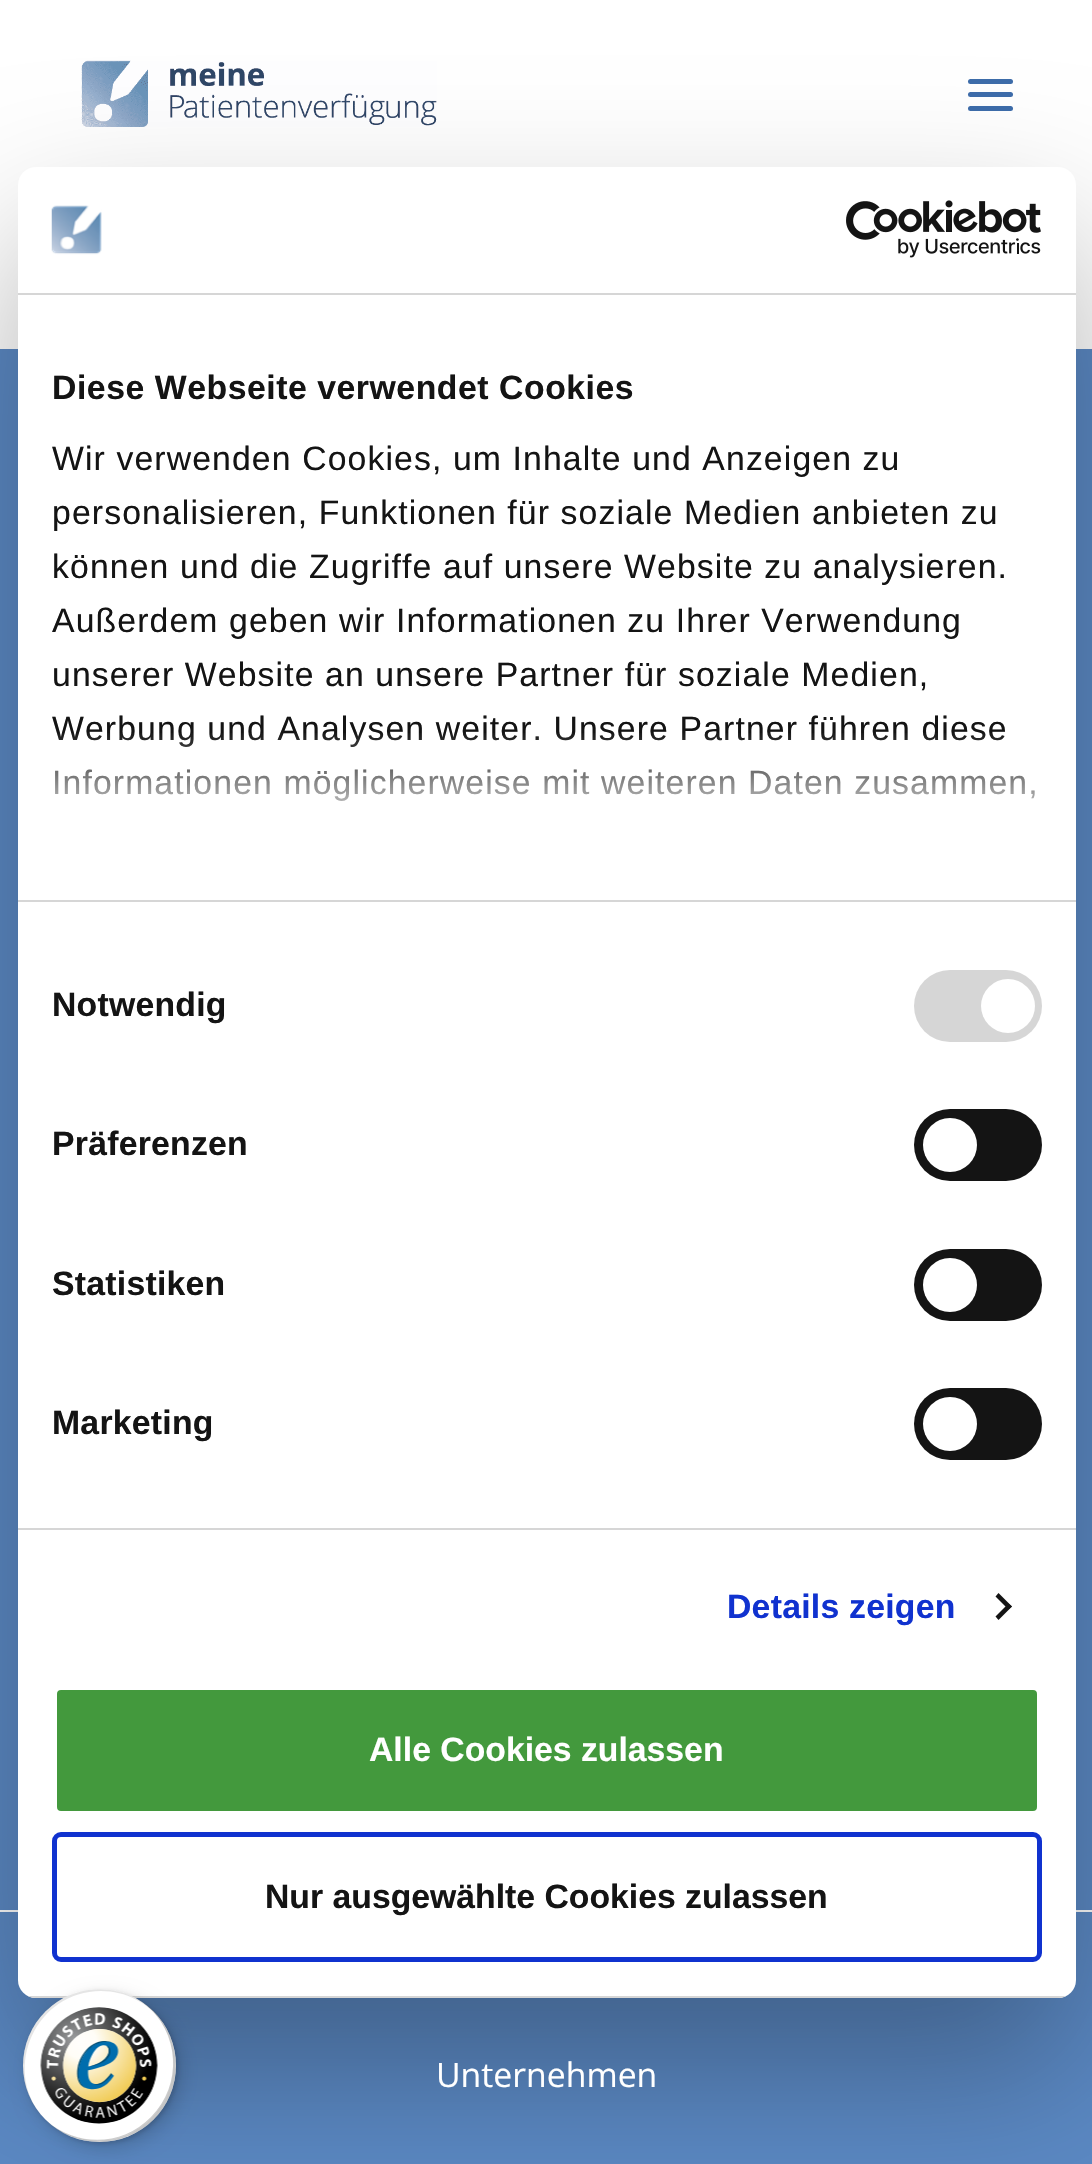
void draw(SkCanvas* canvas) {
	SkPaint paint;
	paint.setAntiAlias(true);
	auto spacedText = [&](const char* s, float x, float y, const SkFont& font, const SkPaint& ink, float letter, float word) {
		std::vector<SkGlyphID> glyphs(font.countText(s, strlen(s), SkTextEncoding::kUTF8));
		std::vector<float> xs(glyphs.size());
		font.textToGlyphs(s, strlen(s), SkTextEncoding::kUTF8, glyphs);
		font.getXPos(glyphs, xs, x);
		float extra = 0;
		for (size_t i = 0; i < glyphs.size(); i++) {
			xs[i] += extra;
			extra += letter + word * (glyphs[i] == font.unicharToGlyph(' '));
		}
		canvas->drawTextBlob(SkTextBlob::MakeFromPosHGlyphs(glyphs, xs, y, font), 0, 0, ink);
	};
	auto svgPath = [&](const char* data, bool evenOdd = false) {
		SkPath result = *SkParsePath::FromSVGString(data);
		if (evenOdd) result.setFillType(SkPathFillType::kEvenOdd);
		return result;
	};
	canvas->clear(0xffffffff);
	canvas->drawImageRect(SkImages::DeferredFromEncodedData(SkData::MakeFromFileName("img4.png")), SkRect::MakeXYWH(81, 60, 356, 67), SkSamplingOptions());
	paint.setColor(0xff3d6caa);
	canvas->drawRoundRect(SkRect::MakeXYWH(968, 92, 45, 5), 2.5, 2.5, paint);
	canvas->drawRoundRect(SkRect::MakeXYWH(968, 79, 45, 5), 2.5, 2.5, paint);
	canvas->drawRoundRect(SkRect::MakeXYWH(968, 106, 45, 5), 2.5, 2.5, paint);
	paint.setColor(0xff5b89c4);
	canvas->drawRect(SkRect::MakeXYWH(0, 349, 1092, 1815), paint);
	paint.setColor(0xffffffff);
	canvas->drawRect(SkRect::MakeXYWH(0, 1910, 1092, 2), paint);
	paint.setColor(0x4d000000);
	paint.setMaskFilter(SkMaskFilter::MakeBlur(kNormal_SkBlurStyle, 76.5));
	canvas->drawRoundRect(SkRect::MakeXYWH(18, 239, 1058, 1831), 18, 18, paint);
	paint.setMaskFilter(nullptr);
	paint.setColor(0xffffffff);
	canvas->drawRoundRect(SkRect::MakeXYWH(18, 167, 1058, 1831), 18, 18, paint);
	paint.setColor(0xffd6d6d6);
	canvas->drawRect(SkRect::MakeXYWH(18, 293, 1058, 2), paint);
	canvas->drawImageRect(SkImages::DeferredFromEncodedData(SkData::MakeFromFileName("img1.png")), SkRect::MakeXYWH(51, 205, 51, 50), SkSamplingOptions());
	canvas->drawImageRect(SkImages::DeferredFromEncodedData(SkData::MakeFromFileName("img2.png")), SkRect::MakeXYWH(846, 200, 195, 58), SkSamplingOptions());
	canvas->drawRect(SkRect::MakeXYWH(18, 900, 1058, 2), paint);
	SkFont f1(fontMgr->matchFamilyStyle("Liberation Sans", SkFontStyle::Bold()), 33.75);
	f1.setSubpixel(true);
	paint.setColor(0xff141414);
	spacedText("Diese Webseite verwendet Cookies", 52, 399, f1, paint, 0.55, 0);
	SkFont f2(fontMgr->matchFamilyStyle("Liberation Sans", SkFontStyle::Normal()), 33.75);
	f2.setSubpixel(true);
	spacedText("Wir verwenden Cookies, um Inhalte und Anzeigen zu", 52, 470, f2, paint, 1.12, 0);
	spacedText("personalisieren, Funktionen für soziale Medien anbieten zu", 52, 524, f2, paint, 1.12, 0);
	spacedText("können und die Zugriffe auf unsere Website zu analysieren.", 52, 578, f2, paint, 1.12, 0);
	spacedText("Außerdem geben wir Informationen zu Ihrer Verwendung", 52, 632, f2, paint, 1.12, 0);
	spacedText("unserer Website an unsere Partner für soziale Medien,", 52, 686, f2, paint, 1.12, 0);
	spacedText("Werbung und Analysen weiter. Unsere Partner führen diese", 52, 740, f2, paint, 1.12, 0);
	spacedText("Informationen möglicherweise mit weiteren Daten zusammen,", 52, 794, f2, paint, 1.12, 0);
	{
		const SkColor colors[] = {0xffffffff, 0xccffffff, 0x00ffffff};
		const float stops[] = {0, 0.5, 1};
		const SkPoint ends[] = {{532, 900}, {532, 731}};
		paint.setShader(SkGradientShader::MakeLinear(ends, colors, stops, 3, SkTileMode::kClamp));
		paint.setAlpha(255);
	}
	canvas->drawRect(SkRect::MakeXYWH(54, 733, 981, 68), paint);
	paint.setShader(nullptr);
	paint.setColor(0xffd6d6d6);
	canvas->drawRect(SkRect::MakeXYWH(18, 1528, 1058, 2), paint);
	paint.setColor(0xff141414);
	spacedText("Notwendig", 52, 1016, f1, paint, 0.25, 0);
	paint.setColor(0xffd6d6d6);
	canvas->drawRoundRect(SkRect::MakeXYWH(914, 970, 128, 72), 36, 36, paint);
	paint.setColor(0xffffffff);
	canvas->drawCircle(1008, 1006, 27, paint);
	paint.setColor(0xff141414);
	spacedText("Präferenzen", 52, 1155, f1, paint, 0.25, 0);
	canvas->drawRoundRect(SkRect::MakeXYWH(914, 1109, 128, 72), 36, 36, paint);
	paint.setColor(0xffffffff);
	canvas->drawCircle(950, 1145, 27, paint);
	paint.setColor(0xff141414);
	spacedText("Statistiken", 52, 1295, f1, paint, 0.25, 0);
	canvas->drawRoundRect(SkRect::MakeXYWH(914, 1249, 128, 72), 36, 36, paint);
	paint.setColor(0xffffffff);
	canvas->drawCircle(950, 1285, 27, paint);
	paint.setColor(0xff141414);
	spacedText("Marketing", 52, 1434, f1, paint, 0.25, 0);
	canvas->drawRoundRect(SkRect::MakeXYWH(914, 1388, 128, 72), 36, 36, paint);
	paint.setColor(0xffffffff);
	canvas->drawCircle(950, 1424, 27, paint);
	paint.setColor(0xff1032cf);
	spacedText("Details zeigen", 727, 1618, f1, paint, 0.25, 0);
	paint.setColor(0xff141414);
	canvas->drawPath(svgPath("M998.5 1593L1012 1606.5L1008.5 1609.5L995.5 1596.5Z"), paint);
	canvas->drawPath(svgPath("M1008.5 1603.5L1012 1606.5L998.5 1620L995.5 1616.5Z"), paint);
	canvas->save();
	canvas->clipPath(svgPath("M36 167H1058C1068 167 1076 175 1076 185V1980C1076 1990 1068 1998 1058 1998H36C26 1998 18 1990 18 1980V185C18 175 26 167 36 167Z"), true);
	paint.setColor(0xffd6d6d6);
	canvas->drawRect(SkRect::MakeXYWH(28, 1996, 1038, 2), paint);
	canvas->restore();
	paint.setColor(0xff43993d);
	canvas->drawRoundRect(SkRect::MakeXYWH(54.5, 1687.5, 985, 126), 6.5, 6.5, paint);
	paint.setStroke(true);
	paint.setStrokeWidth(5);
	paint.setColor(0xffffffff);
	canvas->drawRoundRect(SkRect::MakeXYWH(54.5, 1687.5, 985, 126), 6.5, 6.5, paint);
	paint.setStroke(false);
	canvas->drawString("Alle Cookies zulassen", 369, 1761, f1, paint);
	paint.setStroke(true);
	paint.setColor(0xff1032cf);
	canvas->drawRoundRect(SkRect::MakeXYWH(54.5, 1834.5, 985, 125), 6.5, 6.5, paint);
	paint.setStroke(false);
	paint.setColor(0xff141414);
	canvas->drawString("Nur ausgewählte Cookies zulassen", 265, 1908, f1, paint);
	paint.setColor(0x26000000);
	paint.setMaskFilter(SkMaskFilter::MakeBlur(kNormal_SkBlurStyle, 9));
	canvas->drawRoundRect(SkRect::MakeXYWH(29, 1996, 153, 153), 76.5, 76.5, paint);
	paint.setMaskFilter(nullptr);
	paint.setMaskFilter(SkMaskFilter::MakeBlur(kNormal_SkBlurStyle, 2));
	canvas->drawRoundRect(SkRect::MakeXYWH(25, 1991, 153, 153), 76.5, 76.5, paint);
	paint.setMaskFilter(nullptr);
	paint.setColor(0xffffffff);
	canvas->drawCircle(99.5, 2065.5, 76.5, paint);
	paint.setColor(0x1a000000);
	canvas->drawPath(svgPath("M101 1991C126 1991 148 2003 163 2022C139 1988 92 1979 57 2002C18 2028 12 2082 42 2116C2 2068 36 1991 101 1991Z"), paint);
	paint.setColor(0x33000000);
	canvas->drawPath(svgPath("M48 2122C82 2153 137 2147 163 2108C186 2074 177 2027 144 2003C180 2032 183 2085 151 2117C123 2146 78 2147 48 2122Z"), paint);
	paint.setColor(0x33323232);
	canvas->drawPath(svgPath("M59 2130C93 2152 140 2142 163 2108C187 2072 176 2022 139 2000C160 2013 174 2037 174 2064C174 2106 140 2141 98 2141C84 2141 70 2137 59 2130Z"), paint);
	paint.setColor(0x4dffffff);
	canvas->drawPath(svgPath("M58 2130C92 2152 140 2143 163 2108C187 2072 176 2022 139 2000C175 2023 185 2071 161 2107C138 2141 92 2151 58 2130Z"), paint);
	canvas->drawImageRect(SkImages::DeferredFromEncodedData(SkData::MakeFromFileName("img3.png")), SkRect::MakeXYWH(40, 2007, 118, 117), SkSamplingOptions());
	SkFont f3(fontMgr->matchFamilyStyle("Open Sans", SkFontStyle::Normal()), 33.75);
	f3.setSubpixel(true);
	paint.setColor(0xffffffff);
	canvas->drawString("Unternehmen", 436, 2087, f3, paint);
}
